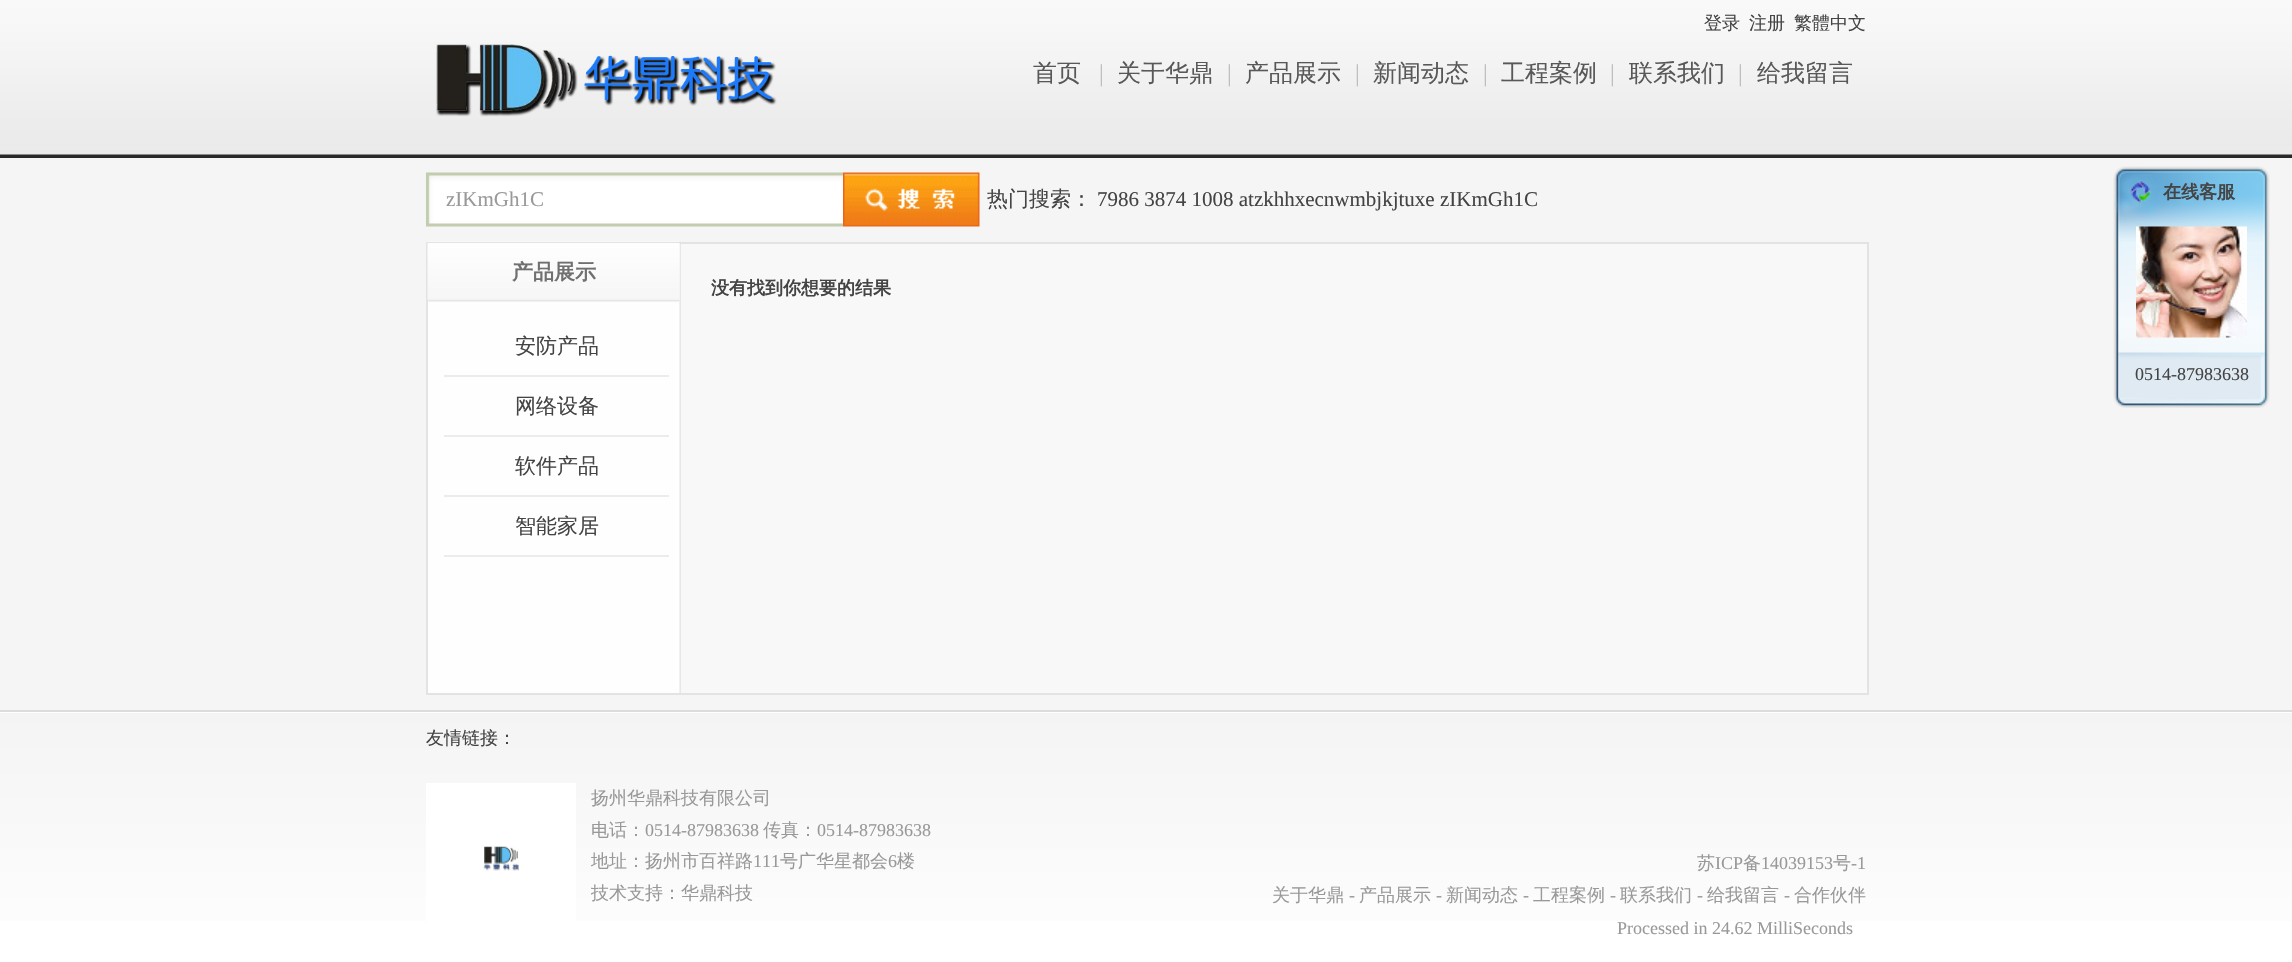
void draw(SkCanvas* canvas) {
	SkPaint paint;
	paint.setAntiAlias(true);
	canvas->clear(0xffffffff);
	canvas->drawImageRect(SkImages::DeferredFromEncodedData(SkData::MakeFromFileName("img1.png")), SkRect::MakeXYWH(0, 0, 2292, 8), SkSamplingOptions());
	canvas->drawImageRect(SkImages::DeferredFromEncodedData(SkData::MakeFromFileName("img2.png")), SkRect::MakeXYWH(0, 8, 2292, 138), SkSamplingOptions());
	canvas->drawImageRect(SkImages::DeferredFromEncodedData(SkData::MakeFromFileName("img3.png")), SkRect::MakeXYWH(0, 146, 2292, 9), SkSamplingOptions());
	paint.setColor(0xff282828);
	canvas->drawRect(SkRect::MakeXYWH(0, 155, 2292, 3), paint);
	SkFont f1(fontMgr->matchFamilyStyle("WenQuanYi Zen Hei", SkFontStyle(500, SkFontStyle::kNormal_Width, SkFontStyle::kUpright_Slant)), 18);
	f1.setSubpixel(true);
	paint.setColor(0xff444444);
	canvas->drawString("登录", 1704, 29, f1, paint);
	canvas->drawString("注册", 1749, 29, f1, paint);
	canvas->drawString("繁體中文", 1794, 29, f1, paint);
	canvas->drawImageRect(SkImages::DeferredFromEncodedData(SkData::MakeFromFileName("img4.png")), SkRect::MakeXYWH(436, 44, 341, 73), SkSamplingOptions());
	SkFont f2(fontMgr->matchFamilyStyle("WenQuanYi Zen Hei", SkFontStyle(500, SkFontStyle::kNormal_Width, SkFontStyle::kUpright_Slant)), 24);
	f2.setSubpixel(true);
	paint.setColor(0xff585858);
	canvas->drawString("首页", 1033, 81, f2, paint);
	SkFont f3(fontMgr->matchFamilyStyle("Liberation Serif", SkFontStyle::Normal()), 24);
	f3.setSubpixel(true);
	paint.setColor(0xffbebebe);
	canvas->drawString("|", 1099, 81, f3, paint);
	paint.setColor(0xff585858);
	canvas->drawString("关于华鼎", 1117, 81, f2, paint);
	paint.setColor(0xffbebebe);
	canvas->drawString("|", 1227, 81, f3, paint);
	paint.setColor(0xff585858);
	canvas->drawString("产品展示", 1245, 81, f2, paint);
	paint.setColor(0xffbebebe);
	canvas->drawString("|", 1355, 81, f3, paint);
	paint.setColor(0xff585858);
	canvas->drawString("新闻动态", 1373, 81, f2, paint);
	paint.setColor(0xffbebebe);
	canvas->drawString("|", 1483, 81, f3, paint);
	paint.setColor(0xff585858);
	canvas->drawString("工程案例", 1501, 81, f2, paint);
	paint.setColor(0xffbebebe);
	canvas->drawString("|", 1610, 81, f3, paint);
	paint.setColor(0xff585858);
	canvas->drawString("联系我们", 1629, 81, f2, paint);
	paint.setColor(0xffbebebe);
	canvas->drawString("|", 1738, 81, f3, paint);
	paint.setColor(0xff585858);
	canvas->drawString("给我留言", 1757, 81, f2, paint);
	paint.setColor(0xfff5f5f5);
	canvas->drawRect(SkRect::MakeXYWH(0, 158, 2292, 552), paint);
	paint.setColor(0xffdcdcdc);
	canvas->drawRect(SkRect::MakeXYWH(0, 710, 2292, 2), paint);
	canvas->drawImageRect(SkImages::DeferredFromEncodedData(SkData::MakeFromFileName("img5.png")), SkRect::MakeXYWH(426, 172, 417, 55), SkSamplingOptions());
	SkFont f4(fontMgr->matchFamilyStyle("Liberation Serif", SkFontStyle::Normal()), 21);
	f4.setSubpixel(true);
	paint.setColor(0xff999999);
	canvas->drawString("zIKmGh1C", 446, 206, f4, paint);
	canvas->drawImageRect(SkImages::DeferredFromEncodedData(SkData::MakeFromFileName("img6.png")), SkRect::MakeXYWH(843, 172, 137, 55), SkSamplingOptions());
	SkFont f5(fontMgr->matchFamilyStyle("WenQuanYi Zen Hei", SkFontStyle(500, SkFontStyle::kNormal_Width, SkFontStyle::kUpright_Slant)), 21);
	f5.setSubpixel(true);
	paint.setColor(0xff444444);
	canvas->drawString("热门搜索：", 987, 206, f5, paint);
	canvas->drawString("7986 3874 1008 atzkhhxecnwmbjkjtuxe zIKmGh1C", 1097, 206, f4, paint);
	paint.setColor(0xfff8f8f8);
	canvas->drawRect(SkRect::MakeXYWH(681, 244, 1186, 449), paint);
	canvas->drawImageRect(SkImages::DeferredFromEncodedData(SkData::MakeFromFileName("img7.png")), SkRect::MakeXYWH(428, 241, 253, 452), SkSamplingOptions());
	paint.setStroke(true);
	paint.setStrokeWidth(2);
	paint.setColor(0xffe3e3e3);
	canvas->drawRect(SkRect::MakeXYWH(427, 243, 1441, 451), paint);
	canvas->drawImageRect(SkImages::DeferredFromEncodedData(SkData::MakeFromFileName("img8.png")), SkRect::MakeXYWH(427, 243, 253, 59), SkSamplingOptions());
	SkFont f6(fontMgr->matchFamilyStyle("WenQuanYi Zen Hei", SkFontStyle::Bold()), 21);
	f6.setSubpixel(true);
	paint.setStroke(false);
	paint.setColor(0xff707070);
	canvas->drawString("产品展示", 512, 279, f6, paint);
	paint.setColor(0xffececec);
	canvas->drawRect(SkRect::MakeXYWH(444, 375, 225, 2), paint);
	paint.setColor(0xff444444);
	canvas->drawString("安防产品", 515, 353, f5, paint);
	paint.setColor(0xffececec);
	canvas->drawRect(SkRect::MakeXYWH(444, 435, 225, 2), paint);
	paint.setColor(0xff444444);
	canvas->drawString("网络设备", 515, 413, f5, paint);
	paint.setColor(0xffececec);
	canvas->drawRect(SkRect::MakeXYWH(444, 495, 225, 2), paint);
	paint.setColor(0xff444444);
	canvas->drawString("软件产品", 515, 473, f5, paint);
	paint.setColor(0xffececec);
	canvas->drawRect(SkRect::MakeXYWH(444, 555, 225, 2), paint);
	paint.setColor(0xff444444);
	canvas->drawString("智能家居", 515, 533, f5, paint);
	SkFont f7(fontMgr->matchFamilyStyle("WenQuanYi Zen Hei", SkFontStyle::Bold()), 18);
	f7.setSubpixel(true);
	canvas->drawString("没有找到你想要的结果", 711, 294, f7, paint);
	canvas->drawImageRect(SkImages::DeferredFromEncodedData(SkData::MakeFromFileName("img9.png")), SkRect::MakeXYWH(2113, 166, 157, 242), SkSamplingOptions());
	canvas->drawString("在线客服", 2163, 198, f7, paint);
	canvas->drawImageRect(SkImages::DeferredFromEncodedData(SkData::MakeFromFileName("img10.png")), SkRect::MakeXYWH(2136, 226, 111, 112), SkSamplingOptions());
	SkFont f8(fontMgr->matchFamilyStyle("Liberation Serif", SkFontStyle::Normal()), 18);
	f8.setSubpixel(true);
	canvas->drawString("0514-87983638", 2135, 380, f8, paint);
	{
		const SkColor colors[] = {0xfff4f4f4, 0xffffffff};
		const float stops[] = {0, 1};
		const SkPoint ends[] = {{1146, 712}, {1146, 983}};
		paint.setShader(SkGradientShader::MakeLinear(ends, colors, stops, 2, SkTileMode::kClamp));
		paint.setAlpha(255);
	}
	canvas->drawRect(SkRect::MakeXYWH(0, 713, 2292, 208), paint);
	paint.setShader(nullptr);
	paint.setColor(0xff444444);
	canvas->drawString("友情链接：", 426, 744, f1, paint);
	paint.setColor(0xffffffff);
	canvas->drawRect(SkRect::MakeXYWH(426, 783, 150, 138), paint);
	canvas->drawImageRect(SkImages::DeferredFromEncodedData(SkData::MakeFromFileName("img11.png")), SkRect::MakeXYWH(483, 846, 36, 25), SkSamplingOptions());
	paint.setColor(0xff999999);
	canvas->drawString("扬州华鼎科技有限公司", 591, 804, f1, paint);
	canvas->drawString("电话：", 591, 836, f1, paint);
	canvas->drawString("0514-87983638", 645, 836, f8, paint);
	canvas->drawString("传真：", 763, 836, f1, paint);
	canvas->drawString("0514-87983638", 817, 836, f8, paint);
	canvas->drawString("地址：扬州市百祥路", 591, 867, f1, paint);
	canvas->drawString("111", 753, 867, f8, paint);
	canvas->drawString("号广华星都会", 780, 867, f1, paint);
	canvas->drawString("6", 888, 867, f8, paint);
	canvas->drawString("楼", 897, 867, f1, paint);
	canvas->drawString("技术支持：华鼎科技", 591, 899, f1, paint);
	canvas->drawString("苏", 1697, 869, f1, paint);
	canvas->drawString("ICP", 1715, 869, f8, paint);
	canvas->drawString("备", 1743, 869, f1, paint);
	canvas->drawString("14039153", 1761, 869, f8, paint);
	canvas->drawString("号", 1833, 869, f1, paint);
	canvas->drawString("-1", 1851, 869, f8, paint);
	canvas->drawString("关于华鼎", 1272, 901, f1, paint);
	canvas->drawString("-", 1349, 901, f8, paint);
	canvas->drawString("产品展示", 1359, 901, f1, paint);
	canvas->drawString("-", 1436, 901, f8, paint);
	canvas->drawString("新闻动态", 1446, 901, f1, paint);
	canvas->drawString("-", 1523, 901, f8, paint);
	canvas->drawString("工程案例", 1533, 901, f1, paint);
	canvas->drawString("-", 1610, 901, f8, paint);
	canvas->drawString("联系我们", 1620, 901, f1, paint);
	canvas->drawString("-", 1697, 901, f8, paint);
	canvas->drawString("给我留言", 1707, 901, f1, paint);
	canvas->drawString("-", 1784, 901, f8, paint);
	canvas->drawString("合作伙伴", 1794, 901, f1, paint);
	canvas->drawString("Processed in 24.62 MilliSeconds", 1617, 934, f8, paint);
}
